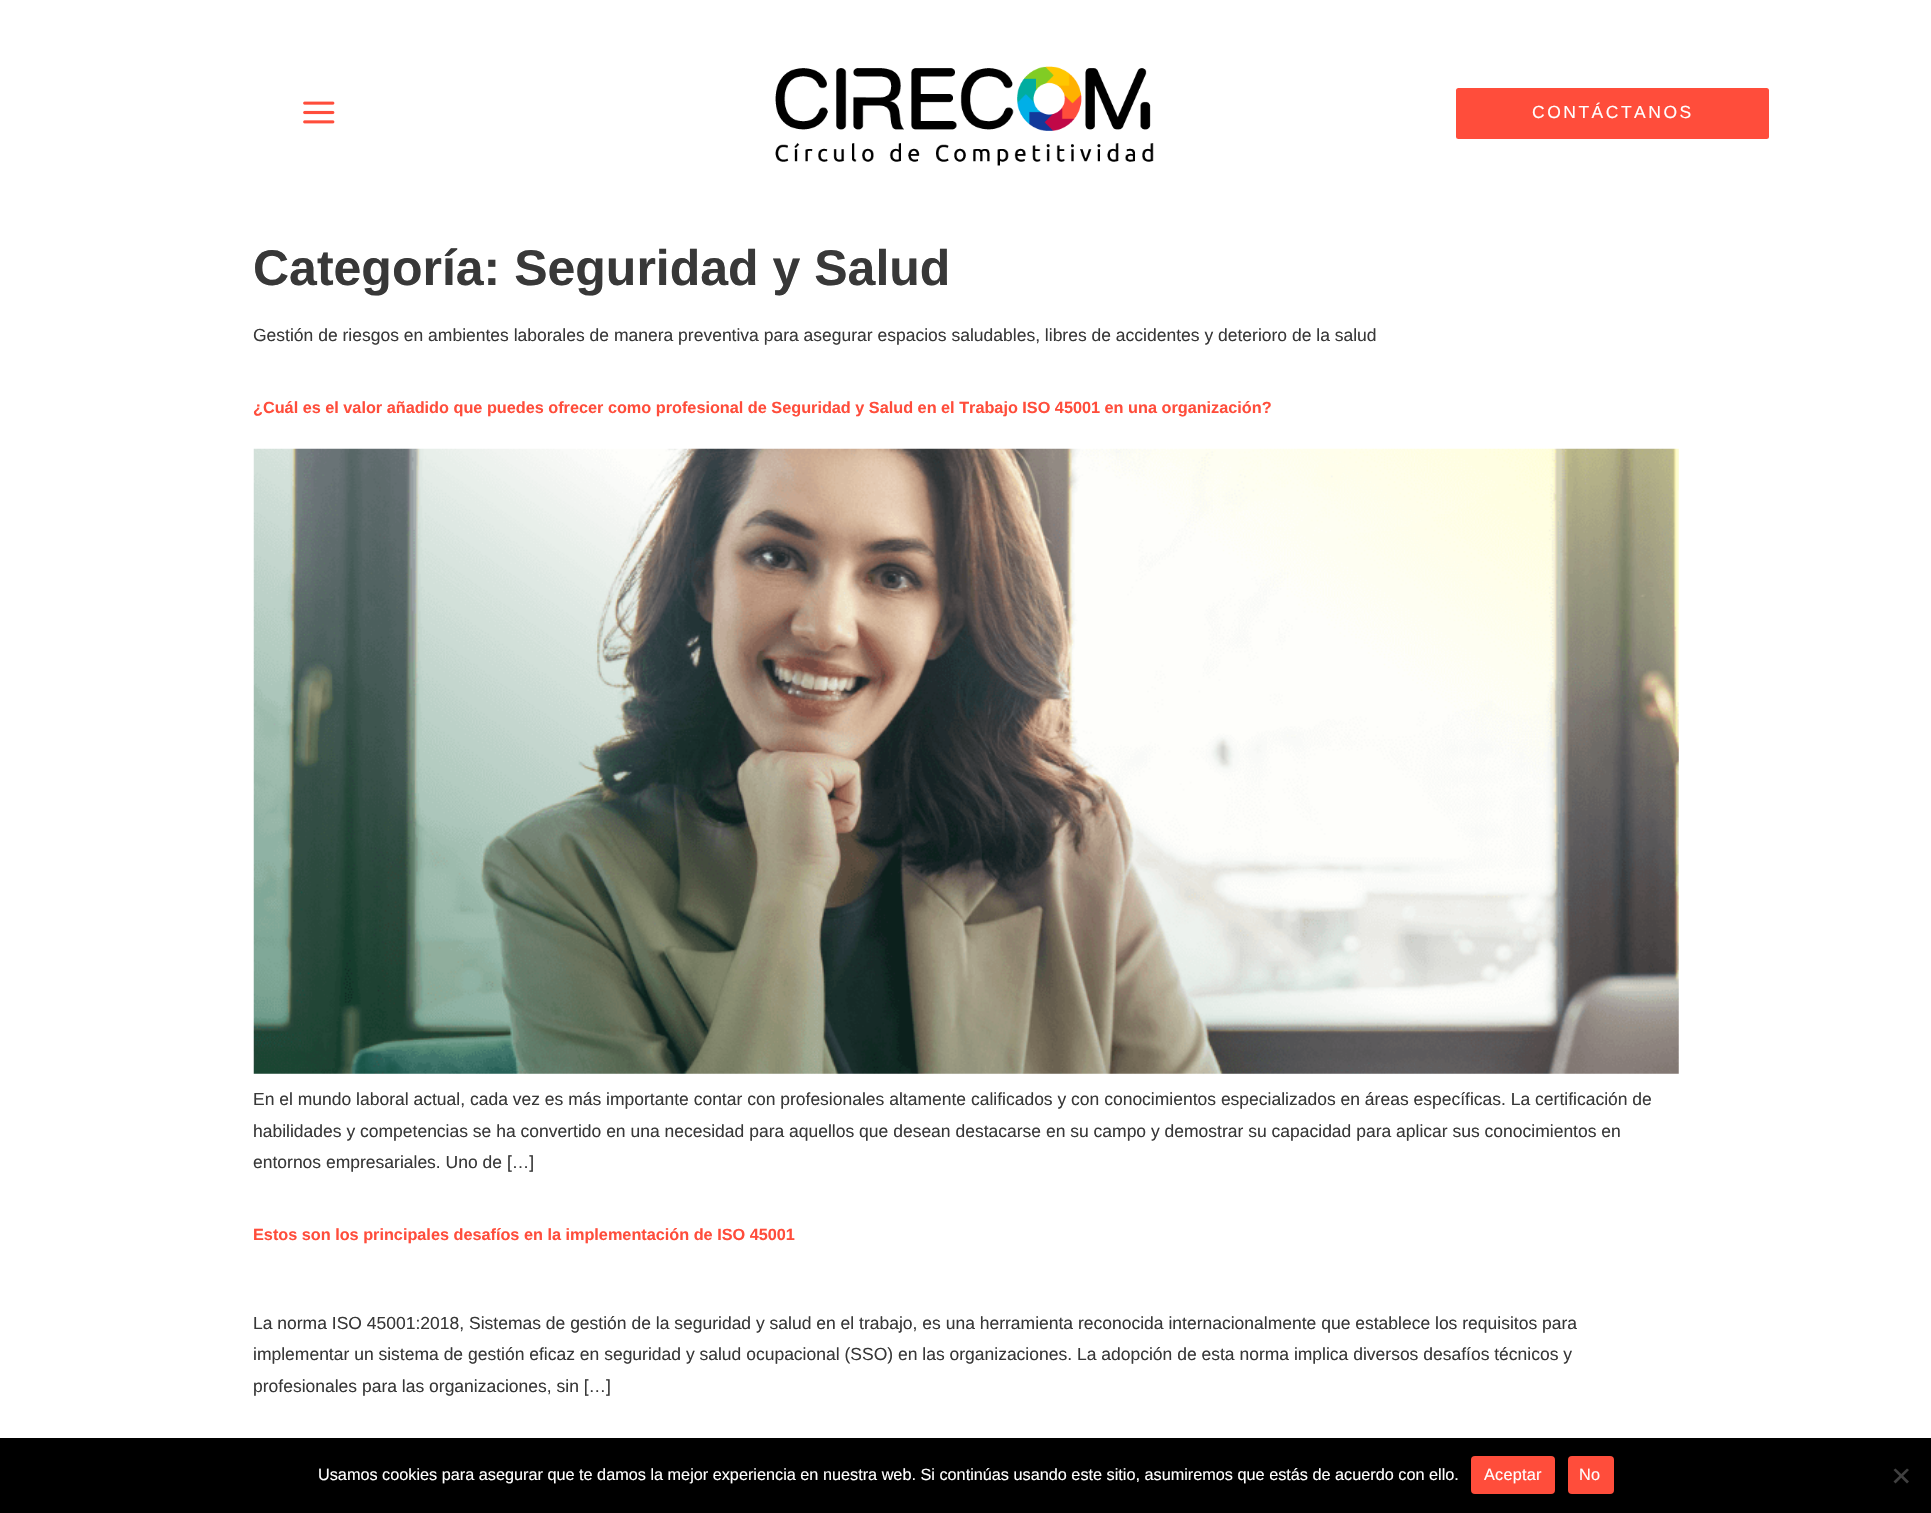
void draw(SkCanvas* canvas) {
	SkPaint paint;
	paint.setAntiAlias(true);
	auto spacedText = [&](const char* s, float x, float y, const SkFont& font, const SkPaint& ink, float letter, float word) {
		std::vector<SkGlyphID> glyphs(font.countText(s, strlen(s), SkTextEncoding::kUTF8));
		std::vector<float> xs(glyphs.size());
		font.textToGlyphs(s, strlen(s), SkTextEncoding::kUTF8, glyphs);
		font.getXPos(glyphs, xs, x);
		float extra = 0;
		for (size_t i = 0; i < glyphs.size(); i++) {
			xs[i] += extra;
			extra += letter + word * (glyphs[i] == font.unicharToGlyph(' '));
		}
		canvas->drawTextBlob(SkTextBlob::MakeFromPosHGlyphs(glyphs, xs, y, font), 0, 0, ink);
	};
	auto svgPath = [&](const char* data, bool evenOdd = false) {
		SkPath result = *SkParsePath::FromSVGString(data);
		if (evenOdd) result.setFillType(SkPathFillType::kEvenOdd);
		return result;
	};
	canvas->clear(0xffffffff);
	canvas->drawImageRect(SkImages::DeferredFromEncodedData(SkData::MakeFromFileName("img1.png")), SkRect::MakeXYWH(303, 101, 32, 23), SkSamplingOptions());
	canvas->drawImageRect(SkImages::DeferredFromEncodedData(SkData::MakeFromFileName("img2.png")), SkRect::MakeXYWH(775, 66, 379, 100), SkSamplingOptions());
	paint.setColor(0xffff4d3b);
	canvas->drawRoundRect(SkRect::MakeXYWH(1456, 88, 313, 51), 2.5, 2.5, paint);
	SkFont f1(fontMgr->matchFamilyStyle("Liberation Sans", SkFontStyle::Normal()), 17.5);
	f1.setSubpixel(true);
	paint.setColor(0xffffffff);
	spacedText("CONTÁCTANOS", 1532, 118, f1, paint, 2.5, 0);
	SkFont f2(fontMgr->matchFamilyStyle("Liberation Sans", SkFontStyle::Bold()), 50);
	f2.setSubpixel(true);
	paint.setColor(0xff383838);
	canvas->drawString("Categoría: Seguridad y Salud", 253, 285, f2, paint);
	canvas->drawString("Gestión de riesgos en ambientes laborales de manera preventiva para asegurar espacios saludables, libres de accidentes y deterioro de la salud", 253, 341, f1, paint);
	SkFont f3(fontMgr->matchFamilyStyle("Liberation Sans", SkFontStyle::Bold()), 16.25);
	f3.setSubpixel(true);
	paint.setColor(0xffff4d3b);
	canvas->drawString("¿Cuál es el valor añadido que puedes ofrecer como profesional de Seguridad y Salud en el Trabajo ISO 45001 en una organización?", 253, 413, f3, paint);
	canvas->drawImageRect(SkImages::DeferredFromEncodedData(SkData::MakeFromFileName("img3.png")), SkRect::MakeXYWH(253, 448, 1426, 626), SkSamplingOptions());
	paint.setColor(0xff383838);
	canvas->drawString("En el mundo laboral actual, cada vez es más importante contar con profesionales altamente calificados y con conocimientos especializados en áreas específicas. La certificación de", 253, 1105, f1, paint);
	canvas->drawString("habilidades y competencias se ha convertido en una necesidad para aquellos que desean destacarse en su campo y demostrar su capacidad para aplicar sus conocimientos en", 253, 1137, f1, paint);
	canvas->drawString("entornos empresariales. Uno de […]", 253, 1168, f1, paint);
	paint.setColor(0xffff4d3b);
	canvas->drawString("Estos son los principales desafíos en la implementación de ISO 45001", 253, 1240, f3, paint);
	paint.setColor(0xff383838);
	canvas->drawString("La norma ISO 45001:2018, Sistemas de gestión de la seguridad y salud en el trabajo, es una herramienta reconocida internacionalmente que establece los requisitos para", 253, 1329, f1, paint);
	canvas->drawString("implementar un sistema de gestión eficaz en seguridad y salud ocupacional (SSO) en las organizaciones. La adopción de esta norma implica diversos desafíos técnicos y", 253, 1360, f1, paint);
	canvas->drawString("profesionales para las organizaciones, sin […]", 253, 1392, f1, paint);
	paint.setColor(0xff000000);
	canvas->drawRect(SkRect::MakeXYWH(0, 1438, 1931, 75), paint);
	SkFont f4(fontMgr->matchFamilyStyle("Liberation Sans", SkFontStyle::Normal()), 16.25);
	f4.setSubpixel(true);
	paint.setColor(0xffffffff);
	canvas->drawString("Usamos cookies para asegurar que te damos la mejor experiencia en nuestra web. Si continúas usando este sitio, asumiremos que estás de acuerdo con ello.", 318, 1480, f4, paint);
	paint.setColor(0xffff4d3b);
	canvas->drawRoundRect(SkRect::MakeXYWH(1471, 1456, 84, 38), 4, 4, paint);
	paint.setColor(0xffffffff);
	spacedText("Aceptar", 1484, 1480, f4, paint, 0.25, 0);
	paint.setColor(0xffff4d3b);
	canvas->drawRoundRect(SkRect::MakeXYWH(1568, 1456, 46, 38), 4, 4, paint);
	paint.setColor(0xffffffff);
	spacedText("No", 1579, 1480, f4, paint, 0.25, 0);
	paint.setColor(0xff404040);
	canvas->drawPath(svgPath("M1907 1468.5L1909 1470L1895.5 1483.5L1893.5 1481.5Z"), paint);
	canvas->drawPath(svgPath("M1893.5 1470L1895.5 1468.5L1909 1481.5L1907 1483.5Z"), paint);
}
